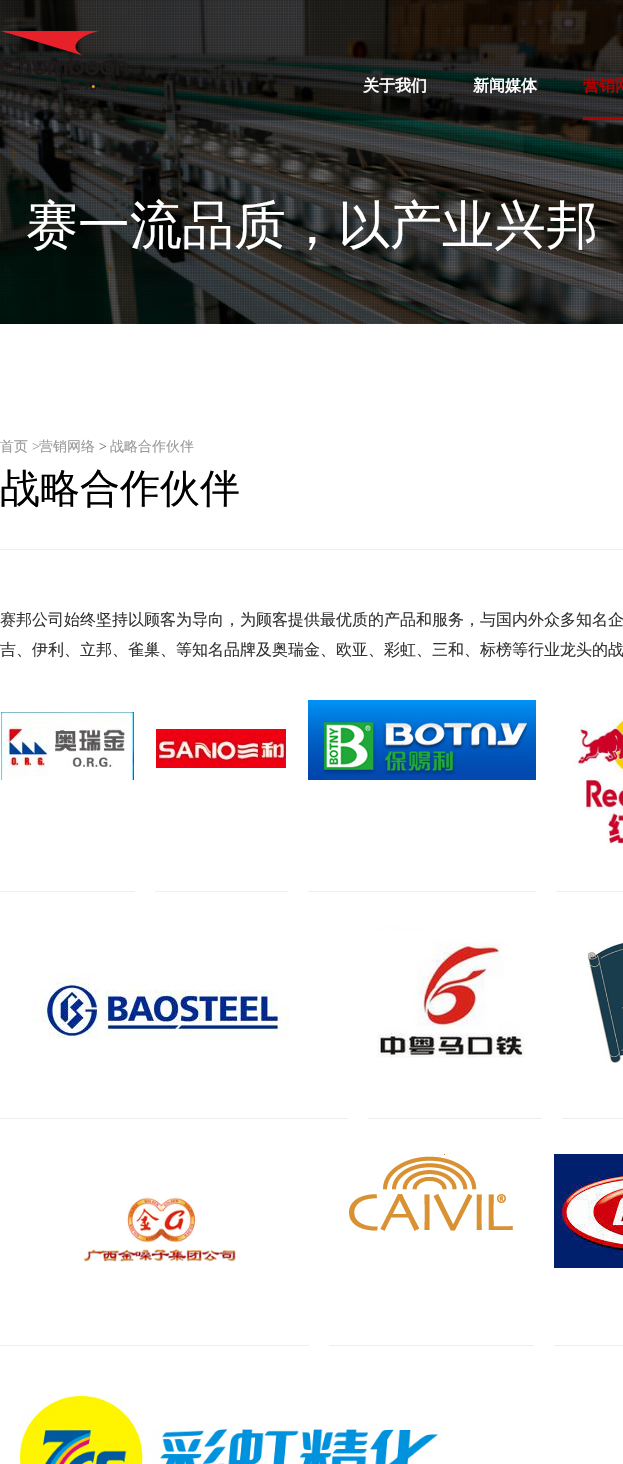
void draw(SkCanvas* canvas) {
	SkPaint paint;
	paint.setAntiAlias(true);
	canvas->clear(0xffffffff);
	canvas->drawImageRect(SkImages::DeferredFromEncodedData(SkData::MakeFromFileName("img2.png")), SkRect::MakeXYWH(0, 0, 623, 324), SkSamplingOptions());
	paint.setColor(0x52000000);
	canvas->drawRect(SkRect::MakeXYWH(0, 0, 623, 120), paint);
	canvas->drawImageRect(SkImages::DeferredFromEncodedData(SkData::MakeFromFileName("img1.png")), SkRect::MakeXYWH(0, 31, 128, 59), SkSamplingOptions());
	SkFont f1(fontMgr->matchFamilyStyle("WenQuanYi Zen Hei", SkFontStyle::Bold()), 16);
	f1.setSubpixel(true);
	paint.setColor(0xffffffff);
	canvas->drawString("关于我们", 363, 91, f1, paint);
	canvas->drawString("新闻媒体", 473, 91, f1, paint);
	paint.setColor(0xffb30000);
	canvas->drawRect(SkRect::MakeXYWH(583, 117, 40, 3), paint);
	canvas->drawString("营销网", 583, 91, f1, paint);
	SkFont f2(fontMgr->matchFamilyStyle("WenQuanYi Zen Hei", SkFontStyle(500, SkFontStyle::kNormal_Width, SkFontStyle::kUpright_Slant)), 52);
	f2.setSubpixel(true);
	paint.setColor(0xffffffff);
	canvas->drawString("赛一流品质，以产业兴邦", 26, 243, f2, paint);
	paint.setColor(0xffeeeeee);
	canvas->drawRect(SkRect::MakeXYWH(0, 549, 623, 1), paint);
	SkFont f3(fontMgr->matchFamilyStyle("WenQuanYi Zen Hei", SkFontStyle(500, SkFontStyle::kNormal_Width, SkFontStyle::kUpright_Slant)), 14);
	f3.setSubpixel(true);
	paint.setColor(0xff999999);
	canvas->drawString("首页", 0, 451, f3, paint);
	SkFont f4(fontMgr->matchFamilyStyle("Liberation Serif", SkFontStyle::Normal()), 14);
	f4.setSubpixel(true);
	canvas->drawString(">", 32, 451, f4, paint);
	canvas->drawString("营销网络", 39, 451, f3, paint);
	paint.setColor(0xff666666);
	canvas->drawString(">", 99, 451, f4, paint);
	paint.setColor(0xff999999);
	canvas->drawString("战略合作伙伴", 110, 451, f3, paint);
	SkFont f5(fontMgr->matchFamilyStyle("WenQuanYi Zen Hei", SkFontStyle(500, SkFontStyle::kNormal_Width, SkFontStyle::kUpright_Slant)), 40);
	f5.setSubpixel(true);
	paint.setColor(0xff000000);
	canvas->drawString("战略合作伙伴", 0, 502, f5, paint);
	SkFont f6(fontMgr->matchFamilyStyle("WenQuanYi Zen Hei", SkFontStyle(500, SkFontStyle::kNormal_Width, SkFontStyle::kUpright_Slant)), 16);
	f6.setSubpixel(true);
	paint.setColor(0xff333333);
	canvas->drawString("赛邦公司始终坚持以顾客为导向，为顾客提供最优质的产品和服务，与国内外众多知名企", 0, 625, f6, paint);
	canvas->drawString("吉、伊利、立邦、雀巢、等知名品牌及奥瑞金、欧亚、彩虹、三和、标榜等行业龙头的战", 0, 655, f6, paint);
	paint.setColor(0xffeeeeee);
	canvas->drawRect(SkRect::MakeXYWH(0, 891, 135, 1), paint);
	canvas->drawImageRect(SkImages::DeferredFromEncodedData(SkData::MakeFromFileName("img3.png")), SkRect::MakeXYWH(1, 711, 133, 69), SkSamplingOptions());
	canvas->drawRect(SkRect::MakeXYWH(155, 891, 133, 1), paint);
	canvas->drawImageRect(SkImages::DeferredFromEncodedData(SkData::MakeFromFileName("img4.png")), SkRect::MakeXYWH(156, 727, 130, 41), SkSamplingOptions());
	canvas->drawRect(SkRect::MakeXYWH(308, 891, 228, 1), paint);
	canvas->drawImageRect(SkImages::DeferredFromEncodedData(SkData::MakeFromFileName("img5.png")), SkRect::MakeXYWH(308, 700, 228, 80), SkSamplingOptions());
	canvas->drawRect(SkRect::MakeXYWH(556, 891, 67, 1), paint);
	canvas->drawImageRect(SkImages::DeferredFromEncodedData(SkData::MakeFromFileName("img6.png")), SkRect::MakeXYWH(573, 718, 50, 127), SkSamplingOptions());
	canvas->drawRect(SkRect::MakeXYWH(0, 1118, 348, 1), paint);
	canvas->drawImageRect(SkImages::DeferredFromEncodedData(SkData::MakeFromFileName("img7.png")), SkRect::MakeXYWH(33, 973, 257, 66), SkSamplingOptions());
	canvas->drawRect(SkRect::MakeXYWH(368, 1118, 174, 1), paint);
	canvas->drawImageRect(SkImages::DeferredFromEncodedData(SkData::MakeFromFileName("img8.png")), SkRect::MakeXYWH(377, 927, 148, 131), SkSamplingOptions());
	canvas->drawRect(SkRect::MakeXYWH(562, 1118, 61, 1), paint);
	canvas->drawImageRect(SkImages::DeferredFromEncodedData(SkData::MakeFromFileName("img9.png")), SkRect::MakeXYWH(586, 942, 37, 121), SkSamplingOptions());
	canvas->drawRect(SkRect::MakeXYWH(0, 1345, 309, 1), paint);
	canvas->drawImageRect(SkImages::DeferredFromEncodedData(SkData::MakeFromFileName("img10.png")), SkRect::MakeXYWH(83, 1197, 154, 65), SkSamplingOptions());
	canvas->drawRect(SkRect::MakeXYWH(329, 1345, 205, 1), paint);
	canvas->drawImageRect(SkImages::DeferredFromEncodedData(SkData::MakeFromFileName("img11.png")), SkRect::MakeXYWH(345, 1154, 168, 77), SkSamplingOptions());
	canvas->drawRect(SkRect::MakeXYWH(554, 1345, 69, 1), paint);
	canvas->drawImageRect(SkImages::DeferredFromEncodedData(SkData::MakeFromFileName("img12.png")), SkRect::MakeXYWH(554, 1154, 69, 114), SkSamplingOptions());
	canvas->drawImageRect(SkImages::DeferredFromEncodedData(SkData::MakeFromFileName("img13.png")), SkRect::MakeXYWH(20, 1394, 422, 70), SkSamplingOptions());
}
